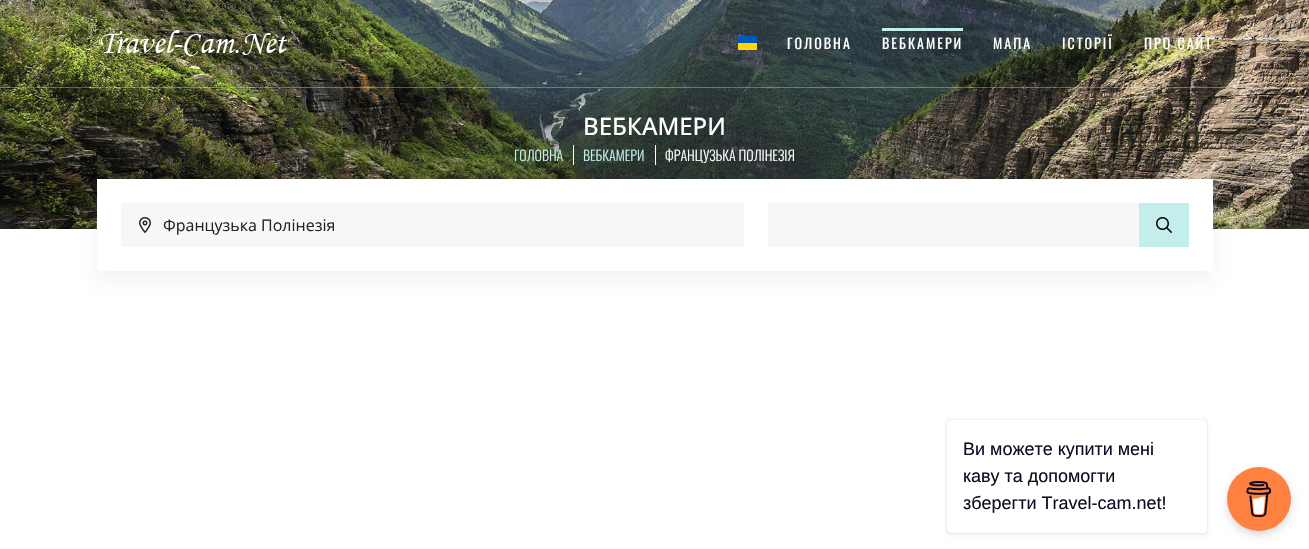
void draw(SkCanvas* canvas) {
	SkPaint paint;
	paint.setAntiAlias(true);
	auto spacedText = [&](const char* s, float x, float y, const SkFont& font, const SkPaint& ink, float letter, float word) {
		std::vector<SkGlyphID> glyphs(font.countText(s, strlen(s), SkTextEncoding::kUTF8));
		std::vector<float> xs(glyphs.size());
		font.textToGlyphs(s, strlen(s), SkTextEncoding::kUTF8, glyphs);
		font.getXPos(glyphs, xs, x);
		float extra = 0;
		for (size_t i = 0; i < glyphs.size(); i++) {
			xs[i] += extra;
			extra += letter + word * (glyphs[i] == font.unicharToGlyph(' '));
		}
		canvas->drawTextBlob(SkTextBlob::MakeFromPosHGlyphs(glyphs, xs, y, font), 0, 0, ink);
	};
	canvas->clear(0xffffffff);
	canvas->drawImageRect(SkImages::DeferredFromEncodedData(SkData::MakeFromFileName("img1.png")), SkRect::MakeXYWH(0, 0, 1309, 229), SkSamplingOptions());
	paint.setColor(0x4dffffff);
	canvas->drawRect(SkRect::MakeXYWH(0, 87, 1309, 1), paint);
	canvas->drawImageRect(SkImages::DeferredFromEncodedData(SkData::MakeFromFileName("img2.png")), SkRect::MakeXYWH(100, 30, 187, 26), SkSamplingOptions());
	paint.setColor(0xffffd700);
	canvas->drawRect(SkRect::MakeXYWH(738, 43, 19, 7), paint);
	paint.setColor(0xff0057b8);
	canvas->drawRect(SkRect::MakeXYWH(738, 36, 19, 7), paint);
	SkFont f1(fontMgr->matchFamilyStyle("Oswald", SkFontStyle::Normal()), 14);
	f1.setSubpixel(true);
	paint.setColor(0xffffffff);
	spacedText("ГОЛОВНА", 787, 49, f1, paint, 2, 0);
	paint.setColor(0xffc4eeec);
	canvas->drawRect(SkRect::MakeXYWH(882, 28, 81, 3), paint);
	paint.setColor(0xffffffff);
	spacedText("ВЕБКАМЕРИ", 882, 49, f1, paint, 2, 0);
	spacedText("МАПА", 993, 49, f1, paint, 2, 0);
	spacedText("ІСТОРІЇ", 1062, 49, f1, paint, 2, 0);
	spacedText("ПРО САЙТ", 1144, 49, f1, paint, 2, 0);
	SkFont f2(fontMgr->matchFamilyStyle("Open Sans", SkFontStyle(500, SkFontStyle::kNormal_Width, SkFontStyle::kUpright_Slant)), 24);
	f2.setSubpixel(true);
	canvas->drawString("ВЕБКАМЕРИ", 583, 135, f2, paint);
	SkFont f3(fontMgr->matchFamilyStyle("Oswald", SkFontStyle(300, SkFontStyle::kNormal_Width, SkFontStyle::kUpright_Slant)), 14);
	f3.setSubpixel(true);
	paint.setColor(0xffc4eeec);
	canvas->drawString("ГОЛОВНА", 514, 161, f3, paint);
	paint.setColor(0xffffffff);
	canvas->drawRect(SkRect::MakeXYWH(573, 145, 1, 20), paint);
	paint.setColor(0xffc4eeec);
	canvas->drawString("ВЕБКАМЕРИ", 583, 161, f3, paint);
	paint.setColor(0xffffffff);
	canvas->drawRect(SkRect::MakeXYWH(655, 145, 1, 20), paint);
	canvas->drawString("ФРАНЦУЗЬКА ПОЛІНЕЗІЯ", 665, 161, f3, paint);
	paint.setColor(0x1a7d7d7d);
	paint.setMaskFilter(SkMaskFilter::MakeBlur(kNormal_SkBlurStyle, 10));
	canvas->drawRect(SkRect::MakeXYWH(97, 189, 1116, 92), paint);
	paint.setMaskFilter(nullptr);
	paint.setColor(0xffffffff);
	canvas->drawRect(SkRect::MakeXYWH(97, 179, 1116, 92), paint);
	paint.setColor(0xfff7f7f7);
	canvas->drawRect(SkRect::MakeXYWH(121, 203, 623, 44), paint);
	canvas->drawImageRect(SkImages::DeferredFromEncodedData(SkData::MakeFromFileName("img3.png")), SkRect::MakeXYWH(139, 217, 12, 16), SkSamplingOptions());
	SkFont f4(fontMgr->matchFamilyStyle("Open Sans", SkFontStyle::Normal()), 16);
	f4.setSubpixel(true);
	paint.setColor(0xff212529);
	canvas->drawString("Французька Полінезія", 163, 231, f4, paint);
	paint.setColor(0xfff7f7f7);
	canvas->drawRect(SkRect::MakeXYWH(768, 203, 371, 44), paint);
	paint.setColor(0xffc4eeec);
	canvas->drawRect(SkRect::MakeXYWH(1139, 203, 50, 44), paint);
	canvas->drawImageRect(SkImages::DeferredFromEncodedData(SkData::MakeFromFileName("img4.png")), SkRect::MakeXYWH(1156, 217, 16, 16), SkSamplingOptions());
	paint.setColor(0x26000000);
	paint.setMaskFilter(SkMaskFilter::MakeBlur(kNormal_SkBlurStyle, 1));
	canvas->drawRoundRect(SkRect::MakeXYWH(947, 420, 260, 113), 4, 4, paint);
	paint.setMaskFilter(nullptr);
	paint.setColor(0x0d000000);
	paint.setMaskFilter(SkMaskFilter::MakeBlur(kNormal_SkBlurStyle, 2.5));
	canvas->drawRoundRect(SkRect::MakeXYWH(947, 422, 260, 113), 4, 4, paint);
	paint.setMaskFilter(nullptr);
	paint.setColor(0xffffffff);
	canvas->drawRoundRect(SkRect::MakeXYWH(947, 420, 260, 113), 4, 4, paint);
	SkFont f5(fontMgr->matchFamilyStyle("Liberation Sans", SkFontStyle::Normal()), 18);
	f5.setSubpixel(true);
	paint.setColor(0xff0d0c22);
	canvas->drawString("Ви можете купити мені", 963, 455, f5, paint);
	canvas->drawString("каву та допомогти", 963, 482, f5, paint);
	canvas->drawString("зберегти Travel-cam.net!", 963, 509, f5, paint);
	paint.setColor(0x26000000);
	paint.setMaskFilter(SkMaskFilter::MakeBlur(kNormal_SkBlurStyle, 4));
	canvas->drawRoundRect(SkRect::MakeXYWH(1227, 471, 64, 64), 32, 32, paint);
	paint.setMaskFilter(nullptr);
	paint.setColor(0xffff813f);
	canvas->drawCircle(1259, 499, 32, paint);
	canvas->drawImageRect(SkImages::DeferredFromEncodedData(SkData::MakeFromFileName("img5.png")), SkRect::MakeXYWH(1246, 481, 26, 36), SkSamplingOptions());
}
